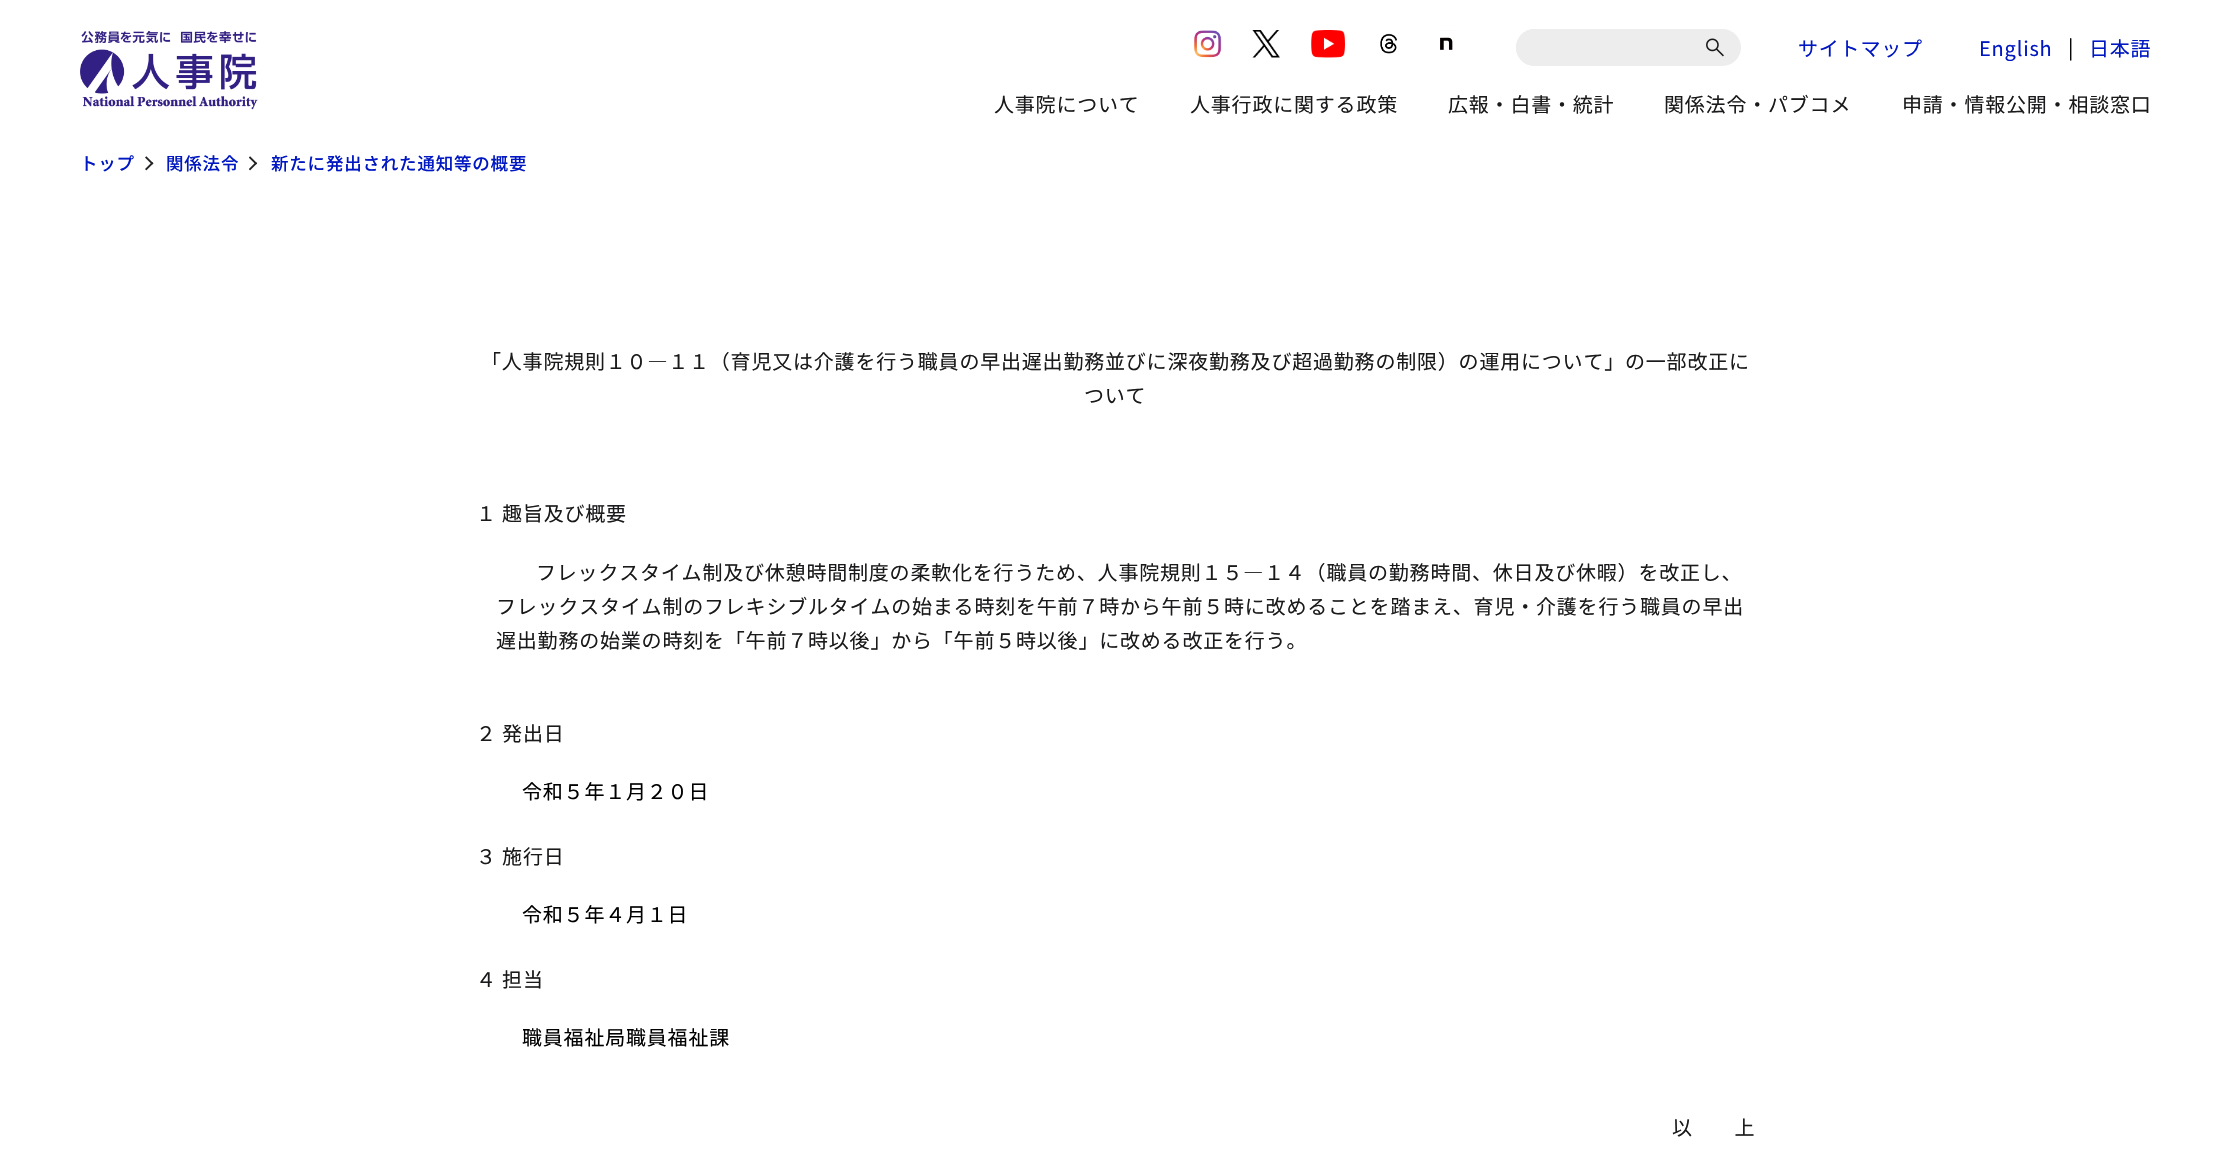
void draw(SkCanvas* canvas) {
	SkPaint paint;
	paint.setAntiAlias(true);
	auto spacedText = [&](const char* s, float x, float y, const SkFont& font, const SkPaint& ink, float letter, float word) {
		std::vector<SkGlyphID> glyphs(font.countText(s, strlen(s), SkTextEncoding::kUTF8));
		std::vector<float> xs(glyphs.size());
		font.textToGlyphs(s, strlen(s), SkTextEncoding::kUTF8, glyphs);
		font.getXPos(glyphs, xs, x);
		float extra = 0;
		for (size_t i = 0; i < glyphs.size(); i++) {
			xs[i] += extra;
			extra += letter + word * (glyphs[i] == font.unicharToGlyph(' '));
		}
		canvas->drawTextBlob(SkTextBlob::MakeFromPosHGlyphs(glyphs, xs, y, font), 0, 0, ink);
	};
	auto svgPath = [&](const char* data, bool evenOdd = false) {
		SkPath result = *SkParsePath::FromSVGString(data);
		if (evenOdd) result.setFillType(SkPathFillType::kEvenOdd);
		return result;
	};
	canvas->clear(0xffffffff);
	canvas->drawImageRect(SkImages::DeferredFromEncodedData(SkData::MakeFromFileName("img1.png")), SkRect::MakeXYWH(80, 30, 178, 80), SkSamplingOptions());
	canvas->drawImageRect(SkImages::DeferredFromEncodedData(SkData::MakeFromFileName("img2.png")), SkRect::MakeXYWH(1194, 30, 28, 28), SkSamplingOptions());
	canvas->drawImageRect(SkImages::DeferredFromEncodedData(SkData::MakeFromFileName("img3.png")), SkRect::MakeXYWH(1252, 30, 28, 28), SkSamplingOptions());
	canvas->drawImageRect(SkImages::DeferredFromEncodedData(SkData::MakeFromFileName("img4.png")), SkRect::MakeXYWH(1311, 30, 34, 28), SkSamplingOptions());
	canvas->drawImageRect(SkImages::DeferredFromEncodedData(SkData::MakeFromFileName("img5.png")), SkRect::MakeXYWH(1380, 33, 17, 21), SkSamplingOptions());
	canvas->drawImageRect(SkImages::DeferredFromEncodedData(SkData::MakeFromFileName("img6.png")), SkRect::MakeXYWH(1440, 30, 16, 20), SkSamplingOptions());
	paint.setColor(0xffededed);
	canvas->drawRoundRect(SkRect::MakeXYWH(1516, 29, 225, 37), 18.5, 18.5, paint);
	canvas->drawPath(svgPath("M1534.5 29H1698V66H1534.5C1524.5 66 1516 57.5 1516 47.5C1516 37.5 1524.5 29 1534.5 29Z"), paint);
	canvas->drawImageRect(SkImages::DeferredFromEncodedData(SkData::MakeFromFileName("img7.png")), SkRect::MakeXYWH(1706, 38, 18, 19), SkSamplingOptions());
	SkFont f1(fontMgr->matchFamilyStyle("Noto Sans JP", SkFontStyle::Normal()), 20);
	f1.setSubpixel(true);
	paint.setColor(0xff0017c1);
	spacedText("サイトマップ", 1798, 56, f1, paint, 0.8, 0);
	spacedText("English", 1979, 56, f1, paint, 0.8, 0);
	paint.setColor(0xff000000);
	spacedText("|", 2068, 55, f1, paint, 0.8, 0);
	paint.setColor(0xff0017c1);
	spacedText("日本語", 2089, 56, f1, paint, 0.8, 0);
	paint.setColor(0xff1a1a1c);
	spacedText("人事院について", 994, 112, f1, paint, 0.8, 0);
	spacedText("人事行政に関する政策", 1190, 112, f1, paint, 0.8, 0);
	spacedText("広報・白書・統計", 1448, 112, f1, paint, 0.8, 0);
	spacedText("関係法令・パブコメ", 1664, 112, f1, paint, 0.8, 0);
	spacedText("申請・情報公開・相談窓口", 1902, 112, f1, paint, 0.8, 0);
	SkFont f2(fontMgr->matchFamilyStyle("Noto Sans JP", SkFontStyle(500, SkFontStyle::kNormal_Width, SkFontStyle::kUpright_Slant)), 17.5);
	f2.setSubpixel(true);
	paint.setColor(0xff0017c1);
	spacedText("トップ", 80, 170, f2, paint, 0.8, 0);
	canvas->drawImageRect(SkImages::DeferredFromEncodedData(SkData::MakeFromFileName("img8.png")), SkRect::MakeXYWH(145, 156, 9, 15), SkSamplingOptions());
	spacedText("関係法令", 166, 170, f2, paint, 0.8, 0);
	canvas->drawImageRect(SkImages::DeferredFromEncodedData(SkData::MakeFromFileName("img9.png")), SkRect::MakeXYWH(249, 156, 9, 15), SkSamplingOptions());
	spacedText("新たに発出された通知等の概要", 271, 170, f2, paint, 0.8, 0);
	paint.setColor(0xff1a1a1c);
	spacedText("「人事院規則１０―１１（育児又は介護を行う職員の早出遅出勤務並びに深夜勤務及び超過勤務の制限）の運用について」の一部改正に", 481, 369, f1, paint, 0.8, 0);
	spacedText("ついて", 1084, 403, f1, paint, 0.8, 0);
	spacedText("１ 趣旨及び概要", 476, 521, f1, paint, 0.8, 0);
	spacedText("フレックスタイム制及び休憩時間制度の柔軟化を行うため、人事院規則１５―１４（職員の勤務時間、休日及び休暇）を改正し、", 536, 580, f1, paint, 0.8, 0);
	spacedText("フレックスタイム制のフレキシブルタイムの始まる時刻を午前７時から午前５時に改めることを踏まえ、育児・介護を行う職員の早出", 496, 614, f1, paint, 0.8, 0);
	spacedText("遅出勤務の始業の時刻を「午前７時以後」から「午前５時以後」に改める改正を行う。", 496, 648, f1, paint, 0.8, 0);
	spacedText("２ 発出日", 476, 741, f1, paint, 0.8, 0);
	paint.setColor(0xff000000);
	spacedText("令和５年１月２０日", 522, 799, f1, paint, 0.8, 0);
	paint.setColor(0xff1a1a1c);
	spacedText("３ 施行日", 476, 864, f1, paint, 0.8, 0);
	paint.setColor(0xff000000);
	spacedText("令和５年４月１日", 522, 922, f1, paint, 0.8, 0);
	paint.setColor(0xff1a1a1c);
	spacedText("４ 担当", 476, 987, f1, paint, 0.8, 0);
	paint.setColor(0xff000000);
	spacedText("職員福祉局職員福祉課", 522, 1045, f1, paint, 0.8, 0);
	paint.setColor(0xff1a1a1c);
	spacedText("以　　上", 1672, 1135, f1, paint, 0.8, 0);
}
